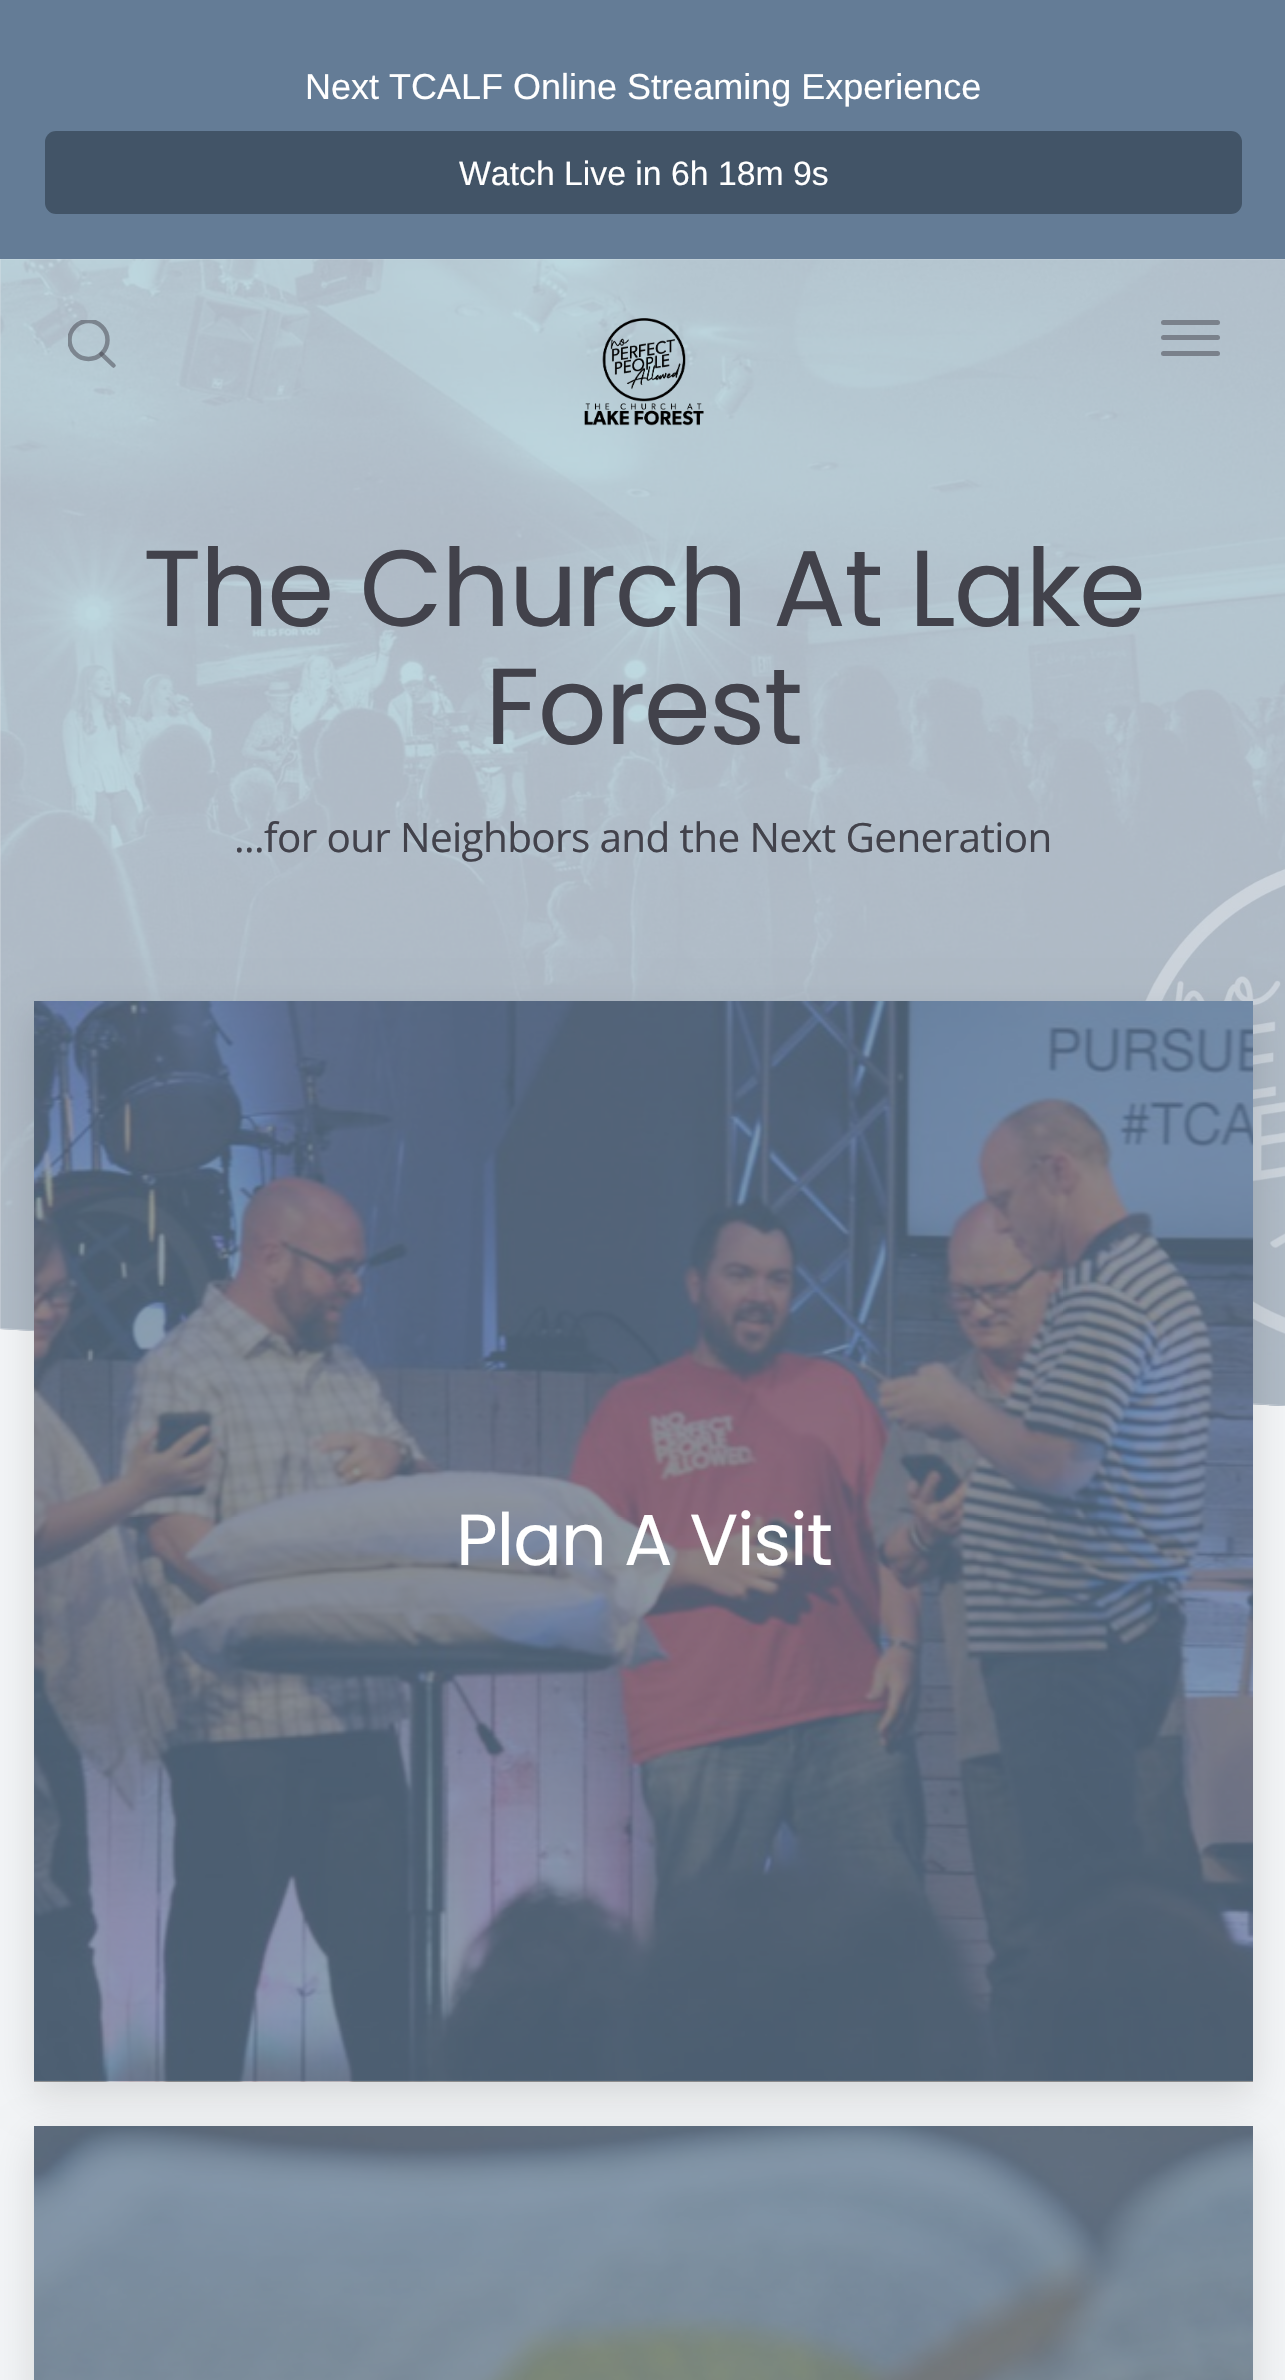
void draw(SkCanvas* canvas) {
	SkPaint paint;
	paint.setAntiAlias(true);
	auto spacedText = [&](const char* s, float x, float y, const SkFont& font, const SkPaint& ink, float letter, float word) {
		std::vector<SkGlyphID> glyphs(font.countText(s, strlen(s), SkTextEncoding::kUTF8));
		std::vector<float> xs(glyphs.size());
		font.textToGlyphs(s, strlen(s), SkTextEncoding::kUTF8, glyphs);
		font.getXPos(glyphs, xs, x);
		float extra = 0;
		for (size_t i = 0; i < glyphs.size(); i++) {
			xs[i] += extra;
			extra += letter + word * (glyphs[i] == font.unicharToGlyph(' '));
		}
		canvas->drawTextBlob(SkTextBlob::MakeFromPosHGlyphs(glyphs, xs, y, font), 0, 0, ink);
	};
	auto svgPath = [&](const char* data, bool evenOdd = false) {
		SkPath result = *SkParsePath::FromSVGString(data);
		if (evenOdd) result.setFillType(SkPathFillType::kEvenOdd);
		return result;
	};
	canvas->clear(0xfff3f5f7);
	paint.setColor(0xff647c96);
	canvas->drawRect(SkRect::MakeXYWH(0, 0, 1285, 259), paint);
	SkFont f1(fontMgr->matchFamilyStyle("Liberation Sans", SkFontStyle::Normal()), 36);
	f1.setSubpixel(true);
	paint.setColor(0xffffffff);
	canvas->drawString("Next TCALF Online Streaming Experience", 305, 99, f1, paint);
	paint.setColor(0xff425467);
	canvas->drawRoundRect(SkRect::MakeXYWH(45, 131, 1197, 83), 11, 11, paint);
	SkFont f2(fontMgr->matchFamilyStyle("Liberation Sans", SkFontStyle::Normal()), 33.75);
	f2.setSubpixel(true);
	paint.setColor(0xffffffff);
	canvas->drawString("Watch Live in 6h 18m 9s", 459, 185, f2, paint);
	paint.setColor(0xffe0e5eb);
	canvas->drawPath(svgPath("M0 259V1329L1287 1406V259Z"), paint);
	canvas->drawImageRect(SkImages::DeferredFromEncodedData(SkData::MakeFromFileName("img1.png")), SkRect::MakeXYWH(0, 259, 1285, 1147), SkSamplingOptions());
	paint.setColor(0xbfe0e5eb);
	canvas->drawPath(svgPath("M0 259V1329L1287 1406V259Z"), paint);
	canvas->save();
	canvas->clipRect(SkRect::MakeXYWH(68, 320, 49, 49));
	paint.setStroke(true);
	paint.setStrokeWidth(4.5);
	paint.setColor(0x8042424b);
	canvas->drawCircle(88.5, 340, 19, paint);
	canvas->restore();
	paint.setStrokeCap(SkPaint::kRound_Cap);
	canvas->drawPath(svgPath("M101.5 354L113.5 365.5"), paint);
	canvas->drawImageRect(SkImages::DeferredFromEncodedData(SkData::MakeFromFileName("img2.png")), SkRect::MakeXYWH(584, 318, 120, 108), SkSamplingOptions());
	paint.setStroke(false);
	paint.setColor(0xff7a818b);
	canvas->drawRoundRect(SkRect::MakeXYWH(1161, 320, 59, 5), 2.5, 2.5, paint);
	canvas->drawRoundRect(SkRect::MakeXYWH(1161, 335, 59, 5), 2.5, 2.5, paint);
	canvas->drawRoundRect(SkRect::MakeXYWH(1161, 351, 59, 5), 2.5, 2.5, paint);
	SkFont f3(fontMgr->matchFamilyStyle("Poppins", SkFontStyle::Normal()), 108);
	f3.setSubpixel(true);
	paint.setColor(0xff42424b);
	spacedText("The Church At Lake", 143, 626, f3, paint, -1.7, 0);
	spacedText("Forest", 485, 744, f3, paint, -1.7, 0);
	SkFont f4(fontMgr->matchFamilyStyle("Open Sans", SkFontStyle::Normal()), 40.5);
	f4.setSubpixel(true);
	spacedText("...for our Neighbors and the Next Generation", 234, 852, f4, paint, -0.65, 0);
	canvas->save();
	canvas->clipPath(svgPath("M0 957H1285V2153H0ZM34 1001H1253V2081H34Z", true), true);
	paint.setColor(0x1f000000);
	paint.setMaskFilter(SkMaskFilter::MakeBlur(kNormal_SkBlurStyle, 19));
	canvas->drawRect(SkRect::MakeXYWH(34, 1015, 1219, 1080), paint);
	paint.setMaskFilter(nullptr);
	canvas->restore();
	canvas->drawImageRect(SkImages::DeferredFromEncodedData(SkData::MakeFromFileName("img3.png")), SkRect::MakeXYWH(34, 1001, 1219, 1081), SkSamplingOptions());
	paint.setColor(0xbf647c96);
	canvas->drawRect(SkRect::MakeXYWH(34, 1001, 1219, 1080), paint);
	SkFont f5(fontMgr->matchFamilyStyle("Poppins", SkFontStyle::Normal()), 72);
	f5.setSubpixel(true);
	paint.setColor(0xffffffff);
	spacedText("Plan A Visit", 456, 1565, f5, paint, -1.1, 0);
	canvas->save();
	canvas->clipPath(svgPath("M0 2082H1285V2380H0ZM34 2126H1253V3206H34Z", true), true);
	paint.setColor(0x1f000000);
	paint.setMaskFilter(SkMaskFilter::MakeBlur(kNormal_SkBlurStyle, 19));
	canvas->drawRect(SkRect::MakeXYWH(34, 2140, 1219, 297), paint);
	paint.setMaskFilter(nullptr);
	canvas->restore();
	canvas->drawImageRect(SkImages::DeferredFromEncodedData(SkData::MakeFromFileName("img4.png")), SkRect::MakeXYWH(34, 2126, 1219, 254), SkSamplingOptions());
}
